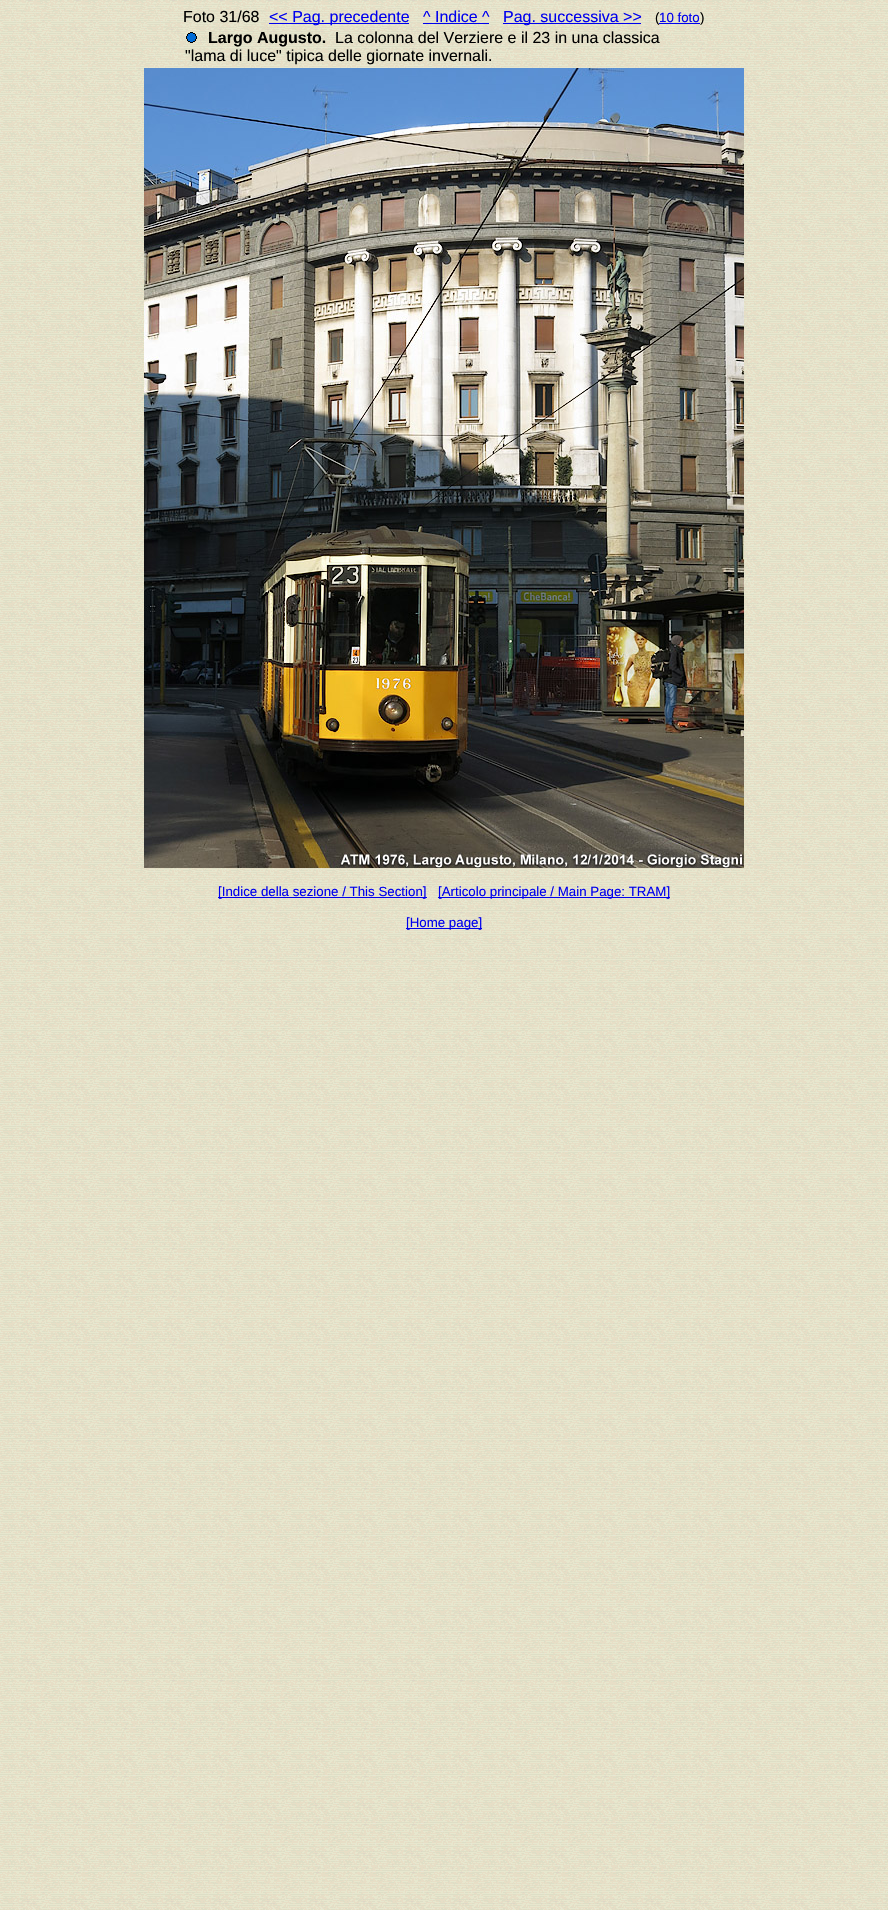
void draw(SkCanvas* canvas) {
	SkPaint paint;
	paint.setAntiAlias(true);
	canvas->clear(0xffffffff);
	canvas->drawImageRect(SkImages::DeferredFromEncodedData(SkData::MakeFromFileName("img1.png")), SkRect::MakeXYWH(0, 0, 888, 1910), SkSamplingOptions());
	SkFont f1(fontMgr->matchFamilyStyle("Liberation Sans", SkFontStyle::Normal()), 16);
	f1.setSubpixel(true);
	paint.setColor(0xff000000);
	canvas->drawString("Foto 31/68", 183, 22, f1, paint);
	paint.setColor(0xff0000ee);
	canvas->drawRect(SkRect::MakeXYWH(269, 23, 140, 1), paint);
	canvas->drawString("<< Pag. precedente", 269, 22, f1, paint);
	canvas->drawString("^ Indice ^", 423, 22, f1, paint);
	canvas->drawRect(SkRect::MakeXYWH(423, 23, 66, 1), paint);
	canvas->drawRect(SkRect::MakeXYWH(503, 23, 138, 1), paint);
	canvas->drawString("Pag. successiva >>", 503, 22, f1, paint);
	SkFont f2(fontMgr->matchFamilyStyle("Liberation Sans", SkFontStyle::Normal()), 13.3);
	f2.setSubpixel(true);
	paint.setColor(0xff000000);
	canvas->drawString("(", 655, 22, f2, paint);
	paint.setColor(0xff0000ee);
	canvas->drawRect(SkRect::MakeXYWH(659, 23, 41, 1), paint);
	canvas->drawString("10 foto", 659, 22, f2, paint);
	paint.setColor(0xff000000);
	canvas->drawString(")", 700, 22, f2, paint);
	canvas->drawImageRect(SkImages::DeferredFromEncodedData(SkData::MakeFromFileName("img2.png")), SkRect::MakeXYWH(186, 32, 11, 11), SkSamplingOptions());
	SkFont f3(fontMgr->matchFamilyStyle("Liberation Sans", SkFontStyle::Bold()), 16);
	f3.setSubpixel(true);
	canvas->drawString("Largo Augusto.", 208, 43, f3, paint);
	canvas->drawString("La colonna del Verziere e il 23 in una classica", 335, 43, f1, paint);
	canvas->drawString("\"lama di luce\" tipica delle giornate invernali.", 185, 61, f1, paint);
	canvas->drawImageRect(SkImages::DeferredFromEncodedData(SkData::MakeFromFileName("img3.png")), SkRect::MakeXYWH(144, 68, 600, 800), SkSamplingOptions());
	paint.setColor(0xff0000ee);
	canvas->drawRect(SkRect::MakeXYWH(218, 897, 209, 1), paint);
	canvas->drawString("[Indice della sezione / This Section]", 218, 896, f2, paint);
	canvas->drawRect(SkRect::MakeXYWH(438, 897, 232, 1), paint);
	canvas->drawString("[Articolo principale / Main Page: TRAM]", 438, 896, f2, paint);
	canvas->drawRect(SkRect::MakeXYWH(406, 928, 76, 1), paint);
	canvas->drawString("[Home page]", 406, 927, f2, paint);
}
